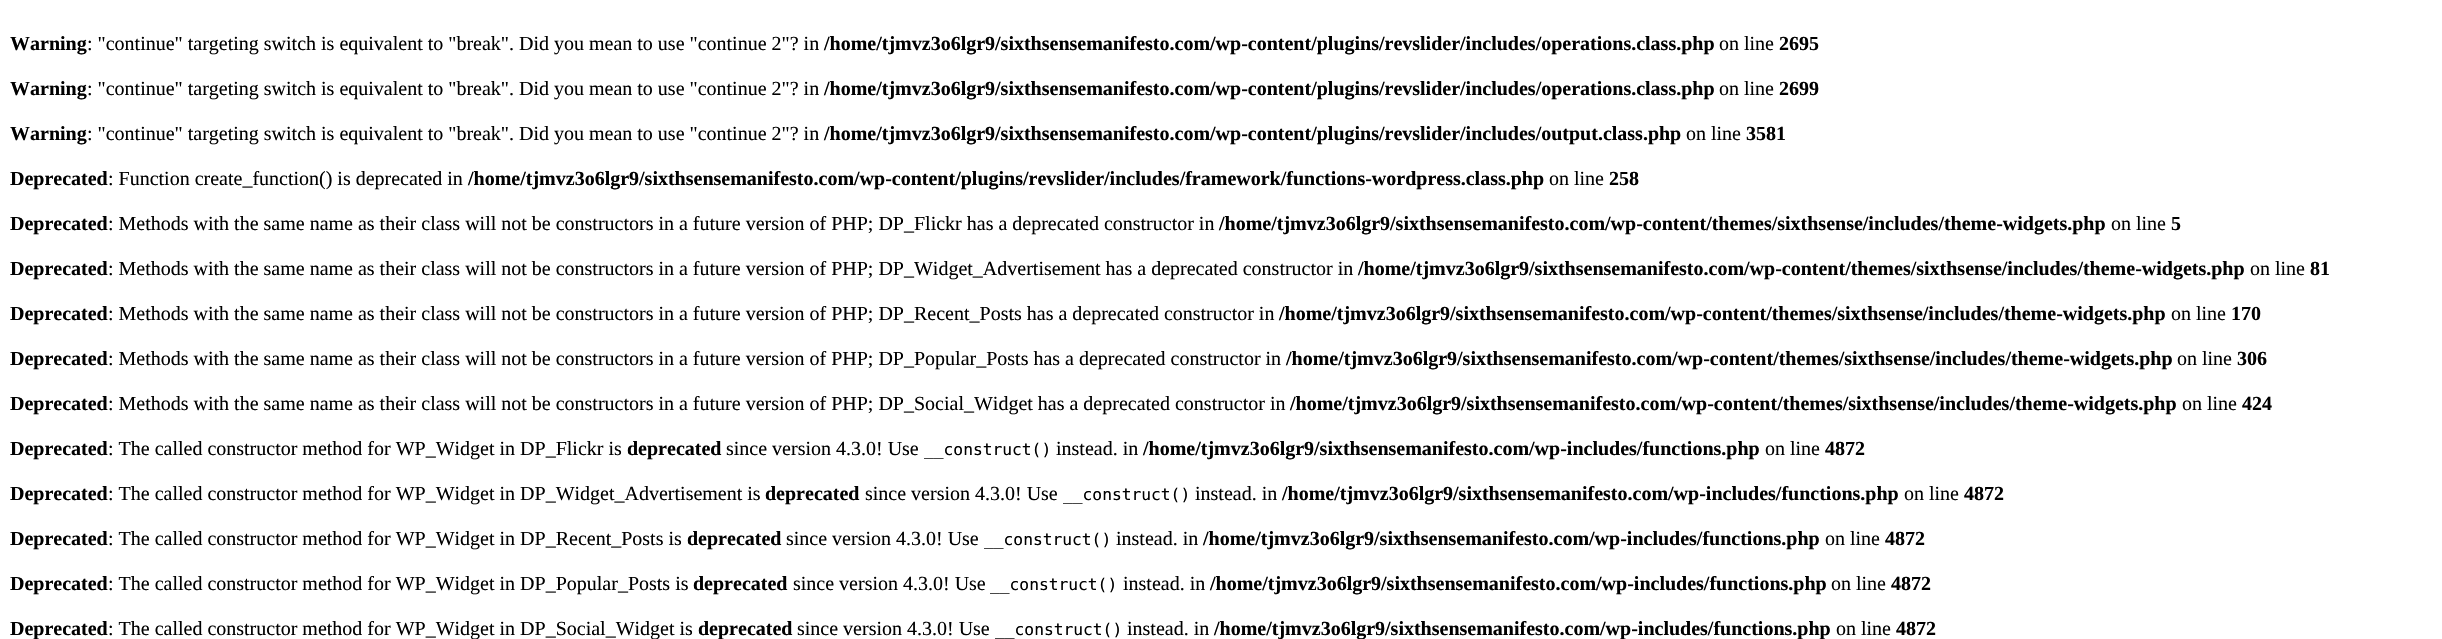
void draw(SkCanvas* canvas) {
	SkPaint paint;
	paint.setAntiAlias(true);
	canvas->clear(0xffffffff);
	SkFont f1(fontMgr->matchFamilyStyle("Liberation Serif", SkFontStyle::Bold()), 20);
	f1.setSubpixel(true);
	paint.setColor(0xff000000);
	canvas->drawString("Warning", 10, 50, f1, paint);
	SkFont f2(fontMgr->matchFamilyStyle("Liberation Serif", SkFontStyle::Normal()), 20);
	f2.setSubpixel(true);
	canvas->drawString(": \"continue\" targeting switch is equivalent to \"break\". Did you mean to use \"continue 2\"? in", 87, 50, f2, paint);
	canvas->drawString("/home/tjmvz3o6lgr9/sixthsensemanifesto.com/wp-content/plugins/revslider/includes/operations.class.php", 824, 50, f1, paint);
	canvas->drawString("on line", 1719, 50, f2, paint);
	canvas->drawString("2695", 1779, 50, f1, paint);
	canvas->drawString("Warning", 10, 95, f1, paint);
	canvas->drawString(": \"continue\" targeting switch is equivalent to \"break\". Did you mean to use \"continue 2\"? in", 87, 95, f2, paint);
	canvas->drawString("/home/tjmvz3o6lgr9/sixthsensemanifesto.com/wp-content/plugins/revslider/includes/operations.class.php", 824, 95, f1, paint);
	canvas->drawString("on line", 1719, 95, f2, paint);
	canvas->drawString("2699", 1779, 95, f1, paint);
	canvas->drawString("Warning", 10, 140, f1, paint);
	canvas->drawString(": \"continue\" targeting switch is equivalent to \"break\". Did you mean to use \"continue 2\"? in", 87, 140, f2, paint);
	canvas->drawString("/home/tjmvz3o6lgr9/sixthsensemanifesto.com/wp-content/plugins/revslider/includes/output.class.php", 824, 140, f1, paint);
	canvas->drawString("on line", 1686, 140, f2, paint);
	canvas->drawString("3581", 1746, 140, f1, paint);
	canvas->drawString("Deprecated", 10, 185, f1, paint);
	canvas->drawString(": Function create_function() is deprecated in", 108, 185, f2, paint);
	canvas->drawString("/home/tjmvz3o6lgr9/sixthsensemanifesto.com/wp-content/plugins/revslider/includes/framework/functions-wordpress.class.php", 468, 185, f1, paint);
	canvas->drawString("on line", 1549, 185, f2, paint);
	canvas->drawString("258", 1609, 185, f1, paint);
	canvas->drawString("Deprecated", 10, 230, f1, paint);
	canvas->drawString(": Methods with the same name as their class will not be constructors in a future version of PHP; DP_Flickr has a deprecated constructor in", 108, 230, f2, paint);
	canvas->drawString("/home/tjmvz3o6lgr9/sixthsensemanifesto.com/wp-content/themes/sixthsense/includes/theme-widgets.php", 1219, 230, f1, paint);
	canvas->drawString("on line", 2111, 230, f2, paint);
	canvas->drawString("5", 2171, 230, f1, paint);
	canvas->drawString("Deprecated", 10, 275, f1, paint);
	canvas->drawString(": Methods with the same name as their class will not be constructors in a future version of PHP; DP_Widget_Advertisement has a deprecated constructor in", 108, 275, f2, paint);
	canvas->drawString("/home/tjmvz3o6lgr9/sixthsensemanifesto.com/wp-content/themes/sixthsense/includes/theme-widgets.php", 1358, 275, f1, paint);
	canvas->drawString("on line", 2250, 275, f2, paint);
	canvas->drawString("81", 2310, 275, f1, paint);
	canvas->drawString("Deprecated", 10, 320, f1, paint);
	canvas->drawString(": Methods with the same name as their class will not be constructors in a future version of PHP; DP_Recent_Posts has a deprecated constructor in", 108, 320, f2, paint);
	canvas->drawString("/home/tjmvz3o6lgr9/sixthsensemanifesto.com/wp-content/themes/sixthsense/includes/theme-widgets.php", 1279, 320, f1, paint);
	canvas->drawString("on line", 2171, 320, f2, paint);
	canvas->drawString("170", 2231, 320, f1, paint);
	canvas->drawString("Deprecated", 10, 365, f1, paint);
	canvas->drawString(": Methods with the same name as their class will not be constructors in a future version of PHP; DP_Popular_Posts has a deprecated constructor in", 108, 365, f2, paint);
	canvas->drawString("/home/tjmvz3o6lgr9/sixthsensemanifesto.com/wp-content/themes/sixthsense/includes/theme-widgets.php", 1286, 365, f1, paint);
	canvas->drawString("on line", 2177, 365, f2, paint);
	canvas->drawString("306", 2237, 365, f1, paint);
	canvas->drawString("Deprecated", 10, 410, f1, paint);
	canvas->drawString(": Methods with the same name as their class will not be constructors in a future version of PHP; DP_Social_Widget has a deprecated constructor in", 108, 410, f2, paint);
	canvas->drawString("/home/tjmvz3o6lgr9/sixthsensemanifesto.com/wp-content/themes/sixthsense/includes/theme-widgets.php", 1290, 410, f1, paint);
	canvas->drawString("on line", 2182, 410, f2, paint);
	canvas->drawString("424", 2242, 410, f1, paint);
	canvas->drawString("Deprecated", 10, 455, f1, paint);
	canvas->drawString(": The called constructor method for WP_Widget in DP_Flickr is", 108, 455, f2, paint);
	canvas->drawString("deprecated", 627, 455, f1, paint);
	canvas->drawString("since version 4.3.0! Use", 726, 455, f2, paint);
	SkFont f3(fontMgr->matchFamilyStyle("DejaVu Sans Mono", SkFontStyle::Normal()), 16.25);
	f3.setSubpixel(true);
	canvas->drawString("__construct()", 924, 455, f3, paint);
	canvas->drawString("instead. in", 1056, 455, f2, paint);
	canvas->drawString("/home/tjmvz3o6lgr9/sixthsensemanifesto.com/wp-includes/functions.php", 1143, 455, f1, paint);
	canvas->drawString("on line", 1765, 455, f2, paint);
	canvas->drawString("4872", 1825, 455, f1, paint);
	canvas->drawString("Deprecated", 10, 500, f1, paint);
	canvas->drawString(": The called constructor method for WP_Widget in DP_Widget_Advertisement is", 108, 500, f2, paint);
	canvas->drawString("deprecated", 765, 500, f1, paint);
	canvas->drawString("since version 4.3.0! Use", 865, 500, f2, paint);
	canvas->drawString("__construct()", 1063, 500, f3, paint);
	canvas->drawString("instead. in", 1195, 500, f2, paint);
	canvas->drawString("/home/tjmvz3o6lgr9/sixthsensemanifesto.com/wp-includes/functions.php", 1282, 500, f1, paint);
	canvas->drawString("on line", 1904, 500, f2, paint);
	canvas->drawString("4872", 1964, 500, f1, paint);
	canvas->drawString("Deprecated", 10, 545, f1, paint);
	canvas->drawString(": The called constructor method for WP_Widget in DP_Recent_Posts is", 108, 545, f2, paint);
	canvas->drawString("deprecated", 687, 545, f1, paint);
	canvas->drawString("since version 4.3.0! Use", 786, 545, f2, paint);
	canvas->drawString("__construct()", 984, 545, f3, paint);
	canvas->drawString("instead. in", 1116, 545, f2, paint);
	canvas->drawString("/home/tjmvz3o6lgr9/sixthsensemanifesto.com/wp-includes/functions.php", 1203, 545, f1, paint);
	canvas->drawString("on line", 1825, 545, f2, paint);
	canvas->drawString("4872", 1885, 545, f1, paint);
	canvas->drawString("Deprecated", 10, 590, f1, paint);
	canvas->drawString(": The called constructor method for WP_Widget in DP_Popular_Posts is", 108, 590, f2, paint);
	canvas->drawString("deprecated", 693, 590, f1, paint);
	canvas->drawString("since version 4.3.0! Use", 793, 590, f2, paint);
	canvas->drawString("__construct()", 990, 590, f3, paint);
	canvas->drawString("instead. in", 1123, 590, f2, paint);
	canvas->drawString("/home/tjmvz3o6lgr9/sixthsensemanifesto.com/wp-includes/functions.php", 1210, 590, f1, paint);
	canvas->drawString("on line", 1831, 590, f2, paint);
	canvas->drawString("4872", 1891, 590, f1, paint);
	canvas->drawString("Deprecated", 10, 635, f1, paint);
	canvas->drawString(": The called constructor method for WP_Widget in DP_Social_Widget is", 108, 635, f2, paint);
	canvas->drawString("deprecated", 698, 635, f1, paint);
	canvas->drawString("since version 4.3.0! Use", 797, 635, f2, paint);
	canvas->drawString("__construct()", 995, 635, f3, paint);
	canvas->drawString("instead. in", 1127, 635, f2, paint);
	canvas->drawString("/home/tjmvz3o6lgr9/sixthsensemanifesto.com/wp-includes/functions.php", 1214, 635, f1, paint);
	canvas->drawString("on line", 1836, 635, f2, paint);
	canvas->drawString("4872", 1896, 635, f1, paint);
}
